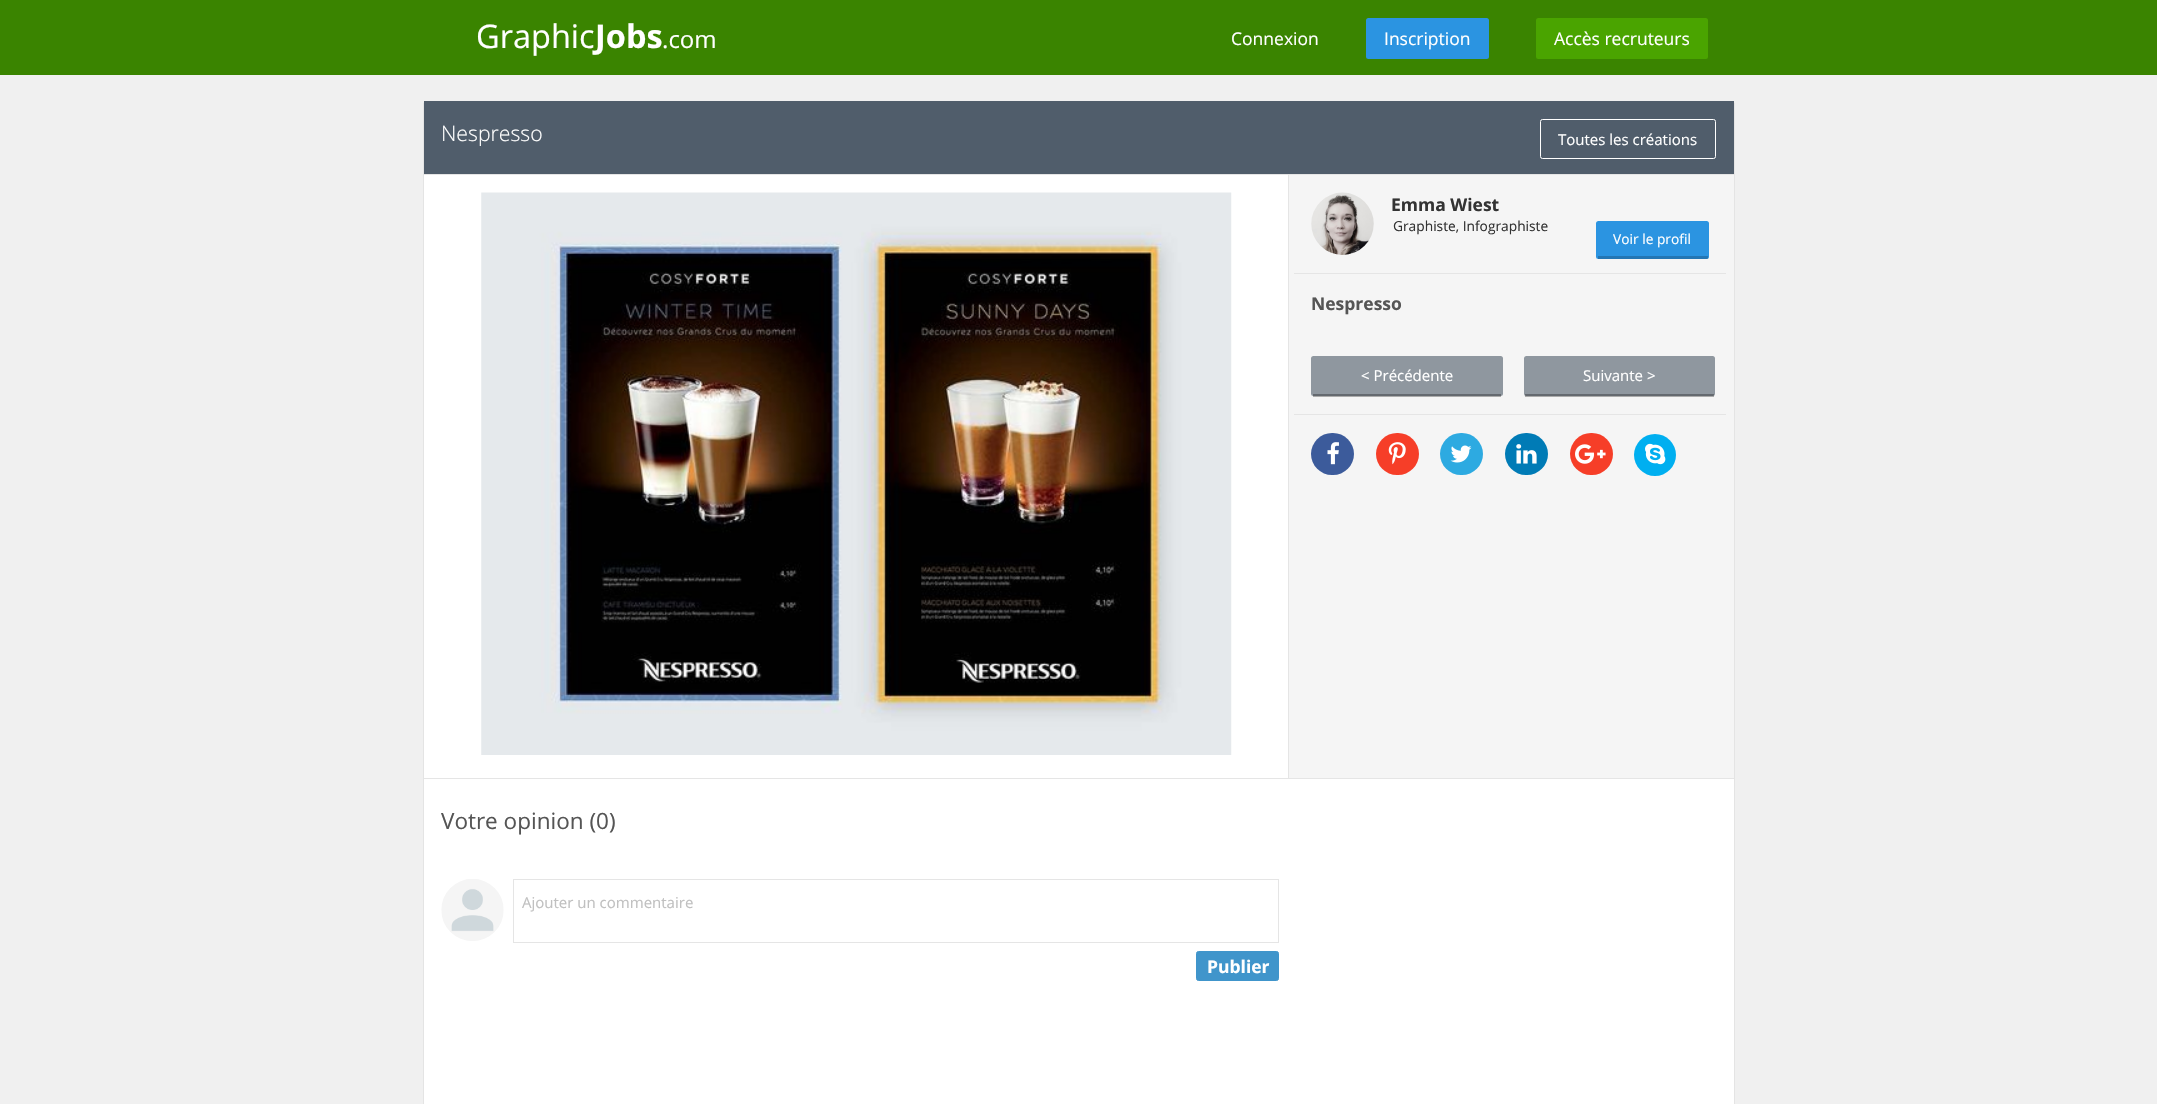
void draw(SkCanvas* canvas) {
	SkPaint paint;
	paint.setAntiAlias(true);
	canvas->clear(0xfff0f0f0);
	paint.setColor(0xff3a8400);
	canvas->drawRect(SkRect::MakeXYWH(0, 0, 2157, 75), paint);
	SkFont f1(fontMgr->matchFamilyStyle("Open Sans", SkFontStyle::Normal()), 32.5);
	f1.setSubpixel(true);
	paint.setColor(0xffffffff);
	canvas->drawString("Graphic", 476, 48, f1, paint);
	SkFont f2(fontMgr->matchFamilyStyle("Open Sans", SkFontStyle::Bold()), 32.5);
	f2.setSubpixel(true);
	canvas->drawString("Jobs", 595, 48, f2, paint);
	SkFont f3(fontMgr->matchFamilyStyle("Open Sans", SkFontStyle::Normal()), 24);
	f3.setSubpixel(true);
	canvas->drawString(".com", 662, 48, f3, paint);
	SkFont f4(fontMgr->matchFamilyStyle("Open Sans", SkFontStyle::Normal()), 17.5);
	f4.setSubpixel(true);
	canvas->drawString("Connexion", 1231, 45, f4, paint);
	paint.setColor(0xff2b94e1);
	canvas->drawRoundRect(SkRect::MakeXYWH(1366, 18, 123, 41), 2.5, 2.5, paint);
	paint.setColor(0xffffffff);
	canvas->drawString("Inscription", 1384, 45, f4, paint);
	paint.setColor(0xff4aa400);
	canvas->drawRoundRect(SkRect::MakeXYWH(1536, 18, 172, 41), 2.5, 2.5, paint);
	paint.setColor(0xffffffff);
	canvas->drawString("Accès recruteurs", 1554, 45, f4, paint);
	paint.setColor(0x4d000000);
	paint.setMaskFilter(SkMaskFilter::MakeBlur(kNormal_SkBlurStyle, 0.5));
	canvas->drawRect(SkRect::MakeXYWH(424, 103, 1310, 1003), paint);
	paint.setMaskFilter(nullptr);
	paint.setColor(0xffffffff);
	canvas->drawRect(SkRect::MakeXYWH(424, 779, 1310, 325), paint);
	paint.setColor(0xff505d6b);
	canvas->drawRect(SkRect::MakeXYWH(424, 101, 1310, 73), paint);
	paint.setColor(0xffe5e5e5);
	canvas->drawRect(SkRect::MakeXYWH(424, 174, 1310, 1), paint);
	SkFont f5(fontMgr->matchFamilyStyle("Open Sans", SkFontStyle(300, SkFontStyle::kNormal_Width, SkFontStyle::kUpright_Slant)), 21.25);
	f5.setSubpixel(true);
	paint.setColor(0xffffffff);
	canvas->drawString("Nespresso", 441, 141, f5, paint);
	paint.setStroke(true);
	paint.setStrokeWidth(1);
	canvas->drawRoundRect(SkRect::MakeXYWH(1540.5, 119.5, 175, 39), 2, 2, paint);
	SkFont f6(fontMgr->matchFamilyStyle("Open Sans", SkFontStyle::Normal()), 15);
	f6.setSubpixel(true);
	paint.setStroke(false);
	canvas->drawString("Toutes les créations", 1558, 145, f6, paint);
	paint.setColor(0xfff5f5f5);
	canvas->drawRect(SkRect::MakeXYWH(1289, 175, 445, 603), paint);
	paint.setColor(0xffe5e5e5);
	canvas->drawRect(SkRect::MakeXYWH(424, 778, 1310, 1), paint);
	paint.setColor(0xffffffff);
	canvas->drawRect(SkRect::MakeXYWH(424, 175, 864, 603), paint);
	paint.setColor(0xffe5e5e5);
	canvas->drawRect(SkRect::MakeXYWH(1288, 175, 1, 603), paint);
	canvas->drawImageRect(SkImages::DeferredFromEncodedData(SkData::MakeFromFileName("img1.png")), SkRect::MakeXYWH(481, 192, 751, 563), SkSamplingOptions());
	canvas->drawImageRect(SkImages::DeferredFromEncodedData(SkData::MakeFromFileName("img2.png")), SkRect::MakeXYWH(1311, 192, 63, 63), SkSamplingOptions());
	SkFont f7(fontMgr->matchFamilyStyle("Open Sans", SkFontStyle::Bold()), 17.5);
	f7.setSubpixel(true);
	paint.setColor(0xff333333);
	canvas->drawString("Emma Wiest", 1391, 211, f7, paint);
	SkFont f8(fontMgr->matchFamilyStyle("Open Sans", SkFontStyle::Normal()), 13.75);
	f8.setSubpixel(true);
	canvas->drawString("Graphiste, Infographiste", 1393, 231, f8, paint);
	paint.setColor(0xff2b94e1);
	canvas->drawRoundRect(SkRect::MakeXYWH(1596, 221, 113, 38), 2.5, 2.5, paint);
	paint.setColor(0x33000000);
	canvas->drawRect(SkRect::MakeXYWH(1598, 256, 110, 3), paint);
	paint.setColor(0xffffffff);
	canvas->drawString("Voir le profil", 1613, 244, f8, paint);
	paint.setColor(0xffe5e5e5);
	canvas->drawRect(SkRect::MakeXYWH(1294, 273, 432, 1), paint);
	paint.setColor(0xff555555);
	canvas->drawString("Nespresso", 1311, 310, f7, paint);
	paint.setColor(0xff8f979f);
	canvas->drawRoundRect(SkRect::MakeXYWH(1311, 356, 192, 40), 2.5, 2.5, paint);
	paint.setColor(0x4d000000);
	canvas->drawRect(SkRect::MakeXYWH(1313, 394, 188, 3), paint);
	paint.setColor(0xffffffff);
	canvas->drawString("< Précédente", 1361, 381, f6, paint);
	paint.setColor(0xff8f979f);
	canvas->drawRoundRect(SkRect::MakeXYWH(1524, 356, 191, 40), 2.5, 2.5, paint);
	paint.setColor(0x4d000000);
	canvas->drawRect(SkRect::MakeXYWH(1525, 394, 189, 3), paint);
	paint.setColor(0xffffffff);
	canvas->drawString("Suivante >", 1583, 381, f6, paint);
	paint.setColor(0xffe5e5e5);
	canvas->drawRect(SkRect::MakeXYWH(1294, 414, 432, 1), paint);
	paint.setColor(0xff3c5b9b);
	canvas->drawRoundRect(SkRect::MakeXYWH(1311, 433, 43, 42), 21, 21, paint);
	canvas->drawImageRect(SkImages::DeferredFromEncodedData(SkData::MakeFromFileName("img3.png")), SkRect::MakeXYWH(1327, 442, 12, 23), SkSamplingOptions());
	paint.setColor(0xfff63e28);
	canvas->drawRoundRect(SkRect::MakeXYWH(1376, 433, 43, 42), 21, 21, paint);
	canvas->drawImageRect(SkImages::DeferredFromEncodedData(SkData::MakeFromFileName("img4.png")), SkRect::MakeXYWH(1388, 442, 18, 23), SkSamplingOptions());
	paint.setColor(0xff2daae1);
	canvas->drawRoundRect(SkRect::MakeXYWH(1440, 433, 43, 42), 21, 21, paint);
	canvas->drawImageRect(SkImages::DeferredFromEncodedData(SkData::MakeFromFileName("img5.png")), SkRect::MakeXYWH(1450, 445, 22, 18), SkSamplingOptions());
	paint.setColor(0xff007bb6);
	canvas->drawRoundRect(SkRect::MakeXYWH(1505, 433, 43, 42), 21, 21, paint);
	canvas->drawImageRect(SkImages::DeferredFromEncodedData(SkData::MakeFromFileName("img6.png")), SkRect::MakeXYWH(1516, 444, 21, 20), SkSamplingOptions());
	paint.setColor(0xfff63e28);
	canvas->drawRoundRect(SkRect::MakeXYWH(1570, 433, 43, 42), 21, 21, paint);
	canvas->drawImageRect(SkImages::DeferredFromEncodedData(SkData::MakeFromFileName("img7.png")), SkRect::MakeXYWH(1575, 444, 31, 20), SkSamplingOptions());
	paint.setColor(0xff00aff0);
	canvas->drawCircle(1655, 455, 21, paint);
	canvas->drawImageRect(SkImages::DeferredFromEncodedData(SkData::MakeFromFileName("img8.png")), SkRect::MakeXYWH(1645, 443, 21, 22), SkSamplingOptions());
	SkFont f9(fontMgr->matchFamilyStyle("Open Sans", SkFontStyle::Normal()), 22.5);
	f9.setSubpixel(true);
	paint.setColor(0xff555555);
	canvas->drawString("Votre opinion (0)", 441, 829, f9, paint);
	canvas->drawImageRect(SkImages::DeferredFromEncodedData(SkData::MakeFromFileName("img9.png")), SkRect::MakeXYWH(441, 879, 63, 62), SkSamplingOptions());
	paint.setStroke(true);
	paint.setColor(0xffe5e5e5);
	canvas->drawRect(SkRect::MakeXYWH(513.5, 879.5, 765, 63), paint);
	paint.setStroke(false);
	paint.setColor(0xffc0c0c0);
	canvas->drawString("Ajouter un commentaire", 522, 908, f6, paint);
	paint.setColor(0xff4095cb);
	canvas->drawRoundRect(SkRect::MakeXYWH(1196.5, 951.5, 82, 29), 2, 2, paint);
	paint.setStroke(true);
	canvas->drawRoundRect(SkRect::MakeXYWH(1196.5, 951.5, 82, 29), 2, 2, paint);
	paint.setStroke(false);
	paint.setColor(0xffffffff);
	canvas->drawString("Publier", 1207, 973, f7, paint);
}
